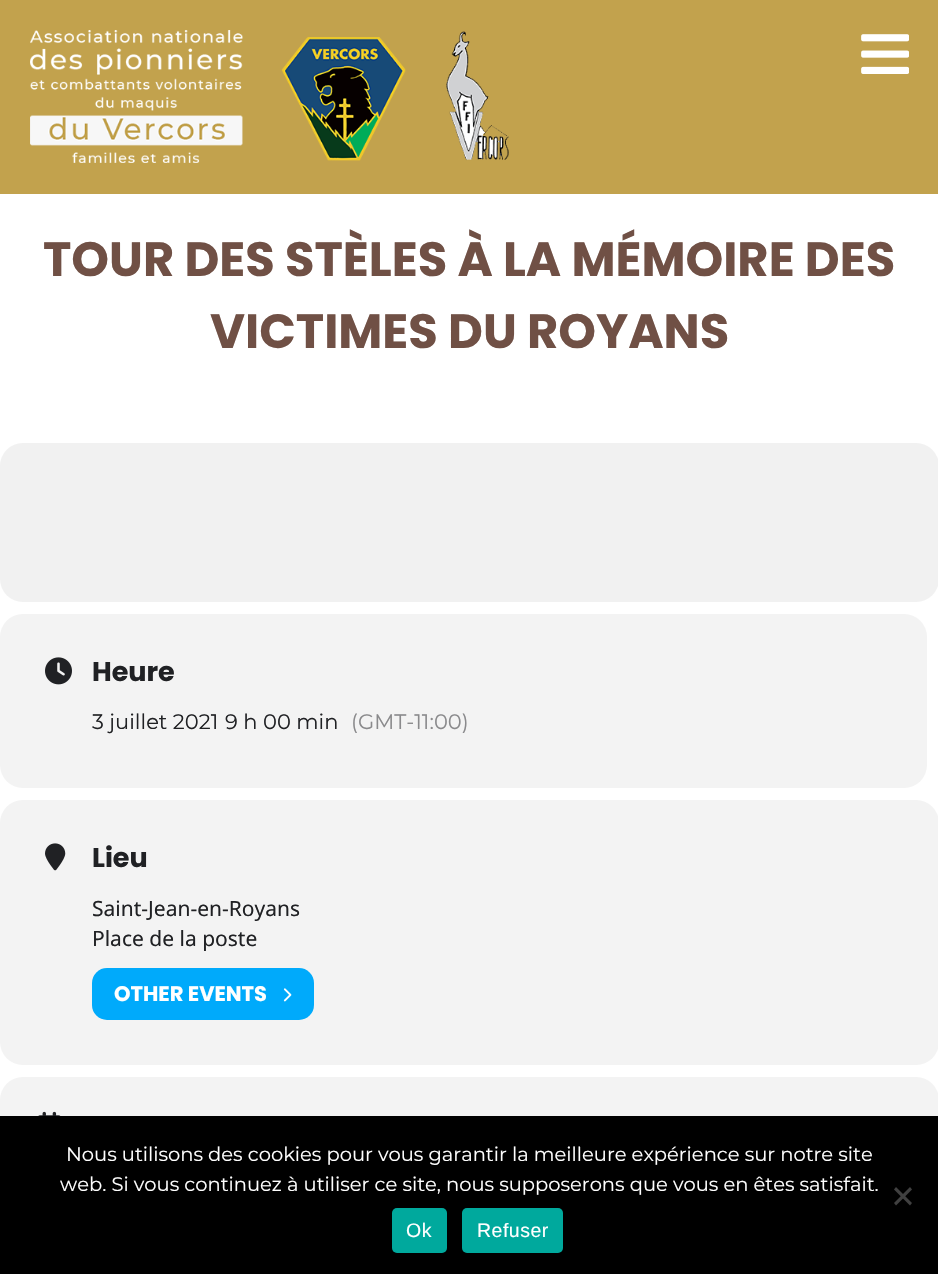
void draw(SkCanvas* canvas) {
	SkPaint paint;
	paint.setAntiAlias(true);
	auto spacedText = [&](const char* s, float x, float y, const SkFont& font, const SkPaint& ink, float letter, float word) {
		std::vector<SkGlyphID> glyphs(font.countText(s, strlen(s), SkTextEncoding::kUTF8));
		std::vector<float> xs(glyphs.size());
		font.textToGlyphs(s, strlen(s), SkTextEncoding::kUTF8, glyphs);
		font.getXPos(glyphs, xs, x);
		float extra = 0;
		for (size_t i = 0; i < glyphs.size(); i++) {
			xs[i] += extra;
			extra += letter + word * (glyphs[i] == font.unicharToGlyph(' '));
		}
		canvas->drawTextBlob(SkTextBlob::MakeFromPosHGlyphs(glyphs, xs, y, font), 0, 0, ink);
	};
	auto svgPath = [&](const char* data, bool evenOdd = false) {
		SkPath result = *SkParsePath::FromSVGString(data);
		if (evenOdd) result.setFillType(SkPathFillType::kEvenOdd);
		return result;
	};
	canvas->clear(0xffffffff);
	paint.setColor(0xffc2a24d);
	canvas->drawRect(SkRect::MakeXYWH(0, 0, 938, 194), paint);
	canvas->drawImageRect(SkImages::DeferredFromEncodedData(SkData::MakeFromFileName("img1.png")), SkRect::MakeXYWH(30, 30, 479, 133), SkSamplingOptions());
	canvas->drawImageRect(SkImages::DeferredFromEncodedData(SkData::MakeFromFileName("img2.png")), SkRect::MakeXYWH(861, 34, 48, 40), SkSamplingOptions());
	SkFont f1(fontMgr->matchFamilyStyle("Poppins", SkFontStyle::Bold()), 48);
	f1.setSubpixel(true);
	paint.setColor(0xff705045);
	canvas->drawString("TOUR DES STÈLES À LA MÉMOIRE DES", 43, 276, f1, paint);
	canvas->drawString("VICTIMES DU ROYANS", 210, 348, f1, paint);
	paint.setColor(0xfff1f1f1);
	canvas->drawRoundRect(SkRect::MakeXYWH(0, 443, 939, 159), 23, 23, paint);
	paint.setColor(0xfff3f3f3);
	canvas->drawRoundRect(SkRect::MakeXYWH(0, 614, 927, 174), 23, 23, paint);
	canvas->drawImageRect(SkImages::DeferredFromEncodedData(SkData::MakeFromFileName("img3.png")), SkRect::MakeXYWH(45, 657, 27, 28), SkSamplingOptions());
	SkFont f2(fontMgr->matchFamilyStyle("Poppins", SkFontStyle::Bold()), 27);
	f2.setSubpixel(true);
	paint.setColor(0xff202124);
	canvas->drawString("Heure", 92, 681, f2, paint);
	SkFont f3(fontMgr->matchFamilyStyle("Montserrat", SkFontStyle::Normal()), 21);
	f3.setSubpixel(true);
	canvas->drawString("3 juillet 2021", 92, 729, f3, paint);
	canvas->drawString("9 h 00 min", 225, 729, f3, paint);
	paint.setColor(0xff8a8a8c);
	canvas->drawString("(GMT-11:00)", 351, 729, f3, paint);
	paint.setColor(0xfff3f3f3);
	canvas->drawRoundRect(SkRect::MakeXYWH(0, 800, 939, 265), 23, 23, paint);
	canvas->drawImageRect(SkImages::DeferredFromEncodedData(SkData::MakeFromFileName("img4.png")), SkRect::MakeXYWH(45, 843, 21, 28), SkSamplingOptions());
	paint.setColor(0xff202124);
	canvas->drawString("Lieu", 92, 867, f2, paint);
	SkFont f4(fontMgr->matchFamilyStyle("Noto Sans", SkFontStyle::Normal()), 21);
	f4.setSubpixel(true);
	canvas->drawString("Saint-Jean-en-Royans", 92, 916, f4, paint);
	canvas->drawString("Place de la poste", 92, 946, f4, paint);
	paint.setColor(0xff00aafb);
	canvas->drawRoundRect(SkRect::MakeXYWH(92, 968, 222, 52), 15, 15, paint);
	SkFont f5(fontMgr->matchFamilyStyle("Poppins", SkFontStyle::Bold()), 21);
	f5.setSubpixel(true);
	paint.setColor(0xffffffff);
	canvas->drawString("OTHER EVENTS", 114, 1001, f5, paint);
	canvas->drawImageRect(SkImages::DeferredFromEncodedData(SkData::MakeFromFileName("img5.png")), SkRect::MakeXYWH(283, 988, 9, 14), SkSamplingOptions());
	paint.setColor(0xfff3f3f3);
	canvas->drawRoundRect(SkRect::MakeXYWH(0, 1077, 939, 98), 23, 23, paint);
	canvas->drawImageRect(SkImages::DeferredFromEncodedData(SkData::MakeFromFileName("img6.png")), SkRect::MakeXYWH(38, 1111, 23, 5), SkSamplingOptions());
	paint.setColor(0xff000000);
	canvas->drawRect(SkRect::MakeXYWH(0, 1116, 938, 158), paint);
	SkFont f6(fontMgr->matchFamilyStyle("Montserrat", SkFontStyle::Normal()), 19.5);
	f6.setSubpixel(true);
	paint.setColor(0xffffffff);
	canvas->drawString("Nous utilisons des cookies pour vous garantir la meilleure expérience sur notre site", 66, 1161, f6, paint);
	canvas->drawString("web. Si vous continuez à utiliser ce site, nous supposerons que vous en êtes satisfait.", 60, 1191, f6, paint);
	paint.setColor(0xff404040);
	canvas->drawPath(svgPath("M910 1187L912 1189.5L896 1205.5L894 1203Z"), paint);
	canvas->drawPath(svgPath("M894 1189.5L896 1187L912 1203L910 1205.5Z"), paint);
	paint.setColor(0xff00a99d);
	canvas->drawRoundRect(SkRect::MakeXYWH(392, 1208, 55, 45), 5, 5, paint);
	SkFont f7(fontMgr->matchFamilyStyle("Liberation Sans", SkFontStyle::Normal()), 19.5);
	f7.setSubpixel(true);
	paint.setColor(0xffffffff);
	spacedText("Ok", 406, 1237, f7, paint, 0.5, 0);
	paint.setColor(0xff00a99d);
	canvas->drawRoundRect(SkRect::MakeXYWH(462, 1208, 101, 45), 5, 5, paint);
	paint.setColor(0xffffffff);
	spacedText("Refuser", 477, 1237, f7, paint, 0.5, 0);
}
